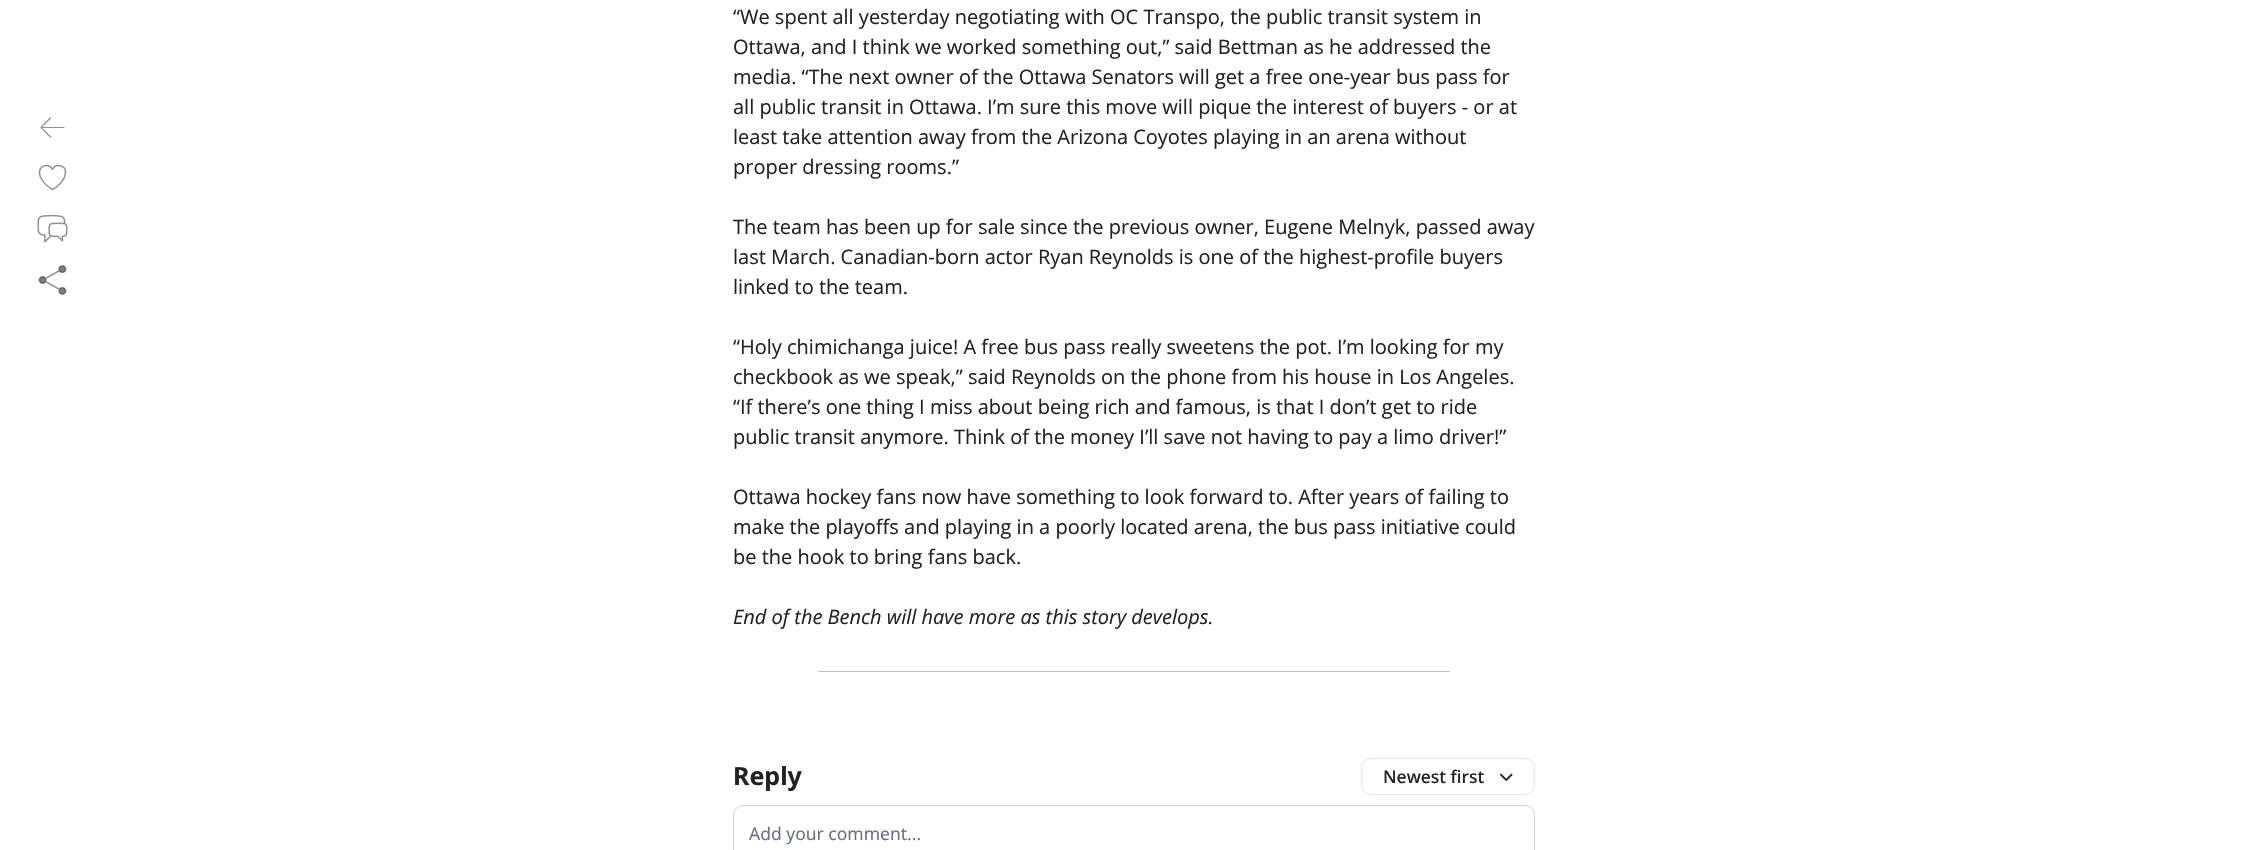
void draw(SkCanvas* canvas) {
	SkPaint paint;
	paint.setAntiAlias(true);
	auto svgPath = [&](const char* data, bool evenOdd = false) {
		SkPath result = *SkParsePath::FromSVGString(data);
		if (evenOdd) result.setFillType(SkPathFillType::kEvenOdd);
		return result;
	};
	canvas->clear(0xffffffff);
	paint.setStroke(true);
	paint.setStrokeWidth(1.2);
	paint.setStrokeCap(SkPaint::kRound_Cap);
	paint.setStrokeJoin(SkPaint::kRound_Join);
	paint.setColor(0xff919191);
	canvas->drawPath(svgPath("M50.5 137L41 127.5M41 127.5L50.5 118M41 127.5H64"), paint);
	paint.setStrokeWidth(1.5);
	canvas->drawPath(svgPath("M65.5 172C65.5 165 55.5 163 52.5 169.5C49 161.5 34 166 41.5 179C44 183.5 48 187 52.5 189.5C52.5 189.5 65.5 182.5 65.5 172Z"), paint);
	canvas->drawImageRect(SkImages::DeferredFromEncodedData(SkData::MakeFromFileName("img1.png")), SkRect::MakeXYWH(37, 214, 31, 29), SkSamplingOptions());
	canvas->drawImageRect(SkImages::DeferredFromEncodedData(SkData::MakeFromFileName("img2.png")), SkRect::MakeXYWH(38, 265, 29, 30), SkSamplingOptions());
	SkFont f1(fontMgr->matchFamilyStyle("Open Sans", SkFontStyle::Normal()), 20);
	f1.setSubpixel(true);
	paint.setStroke(false);
	paint.setColor(0xff222222);
	canvas->drawString("“We spent all yesterday negotiating with OC Transpo, the public transit system in", 733, 24, f1, paint);
	canvas->drawString("Ottawa, and I think we worked something out,” said Bettman as he addressed the", 733, 54, f1, paint);
	canvas->drawString("media. “The next owner of the Ottawa Senators will get a free one-year bus pass for", 733, 84, f1, paint);
	canvas->drawString("all public transit in Ottawa. I’m sure this move will pique the interest of buyers - or at", 733, 114, f1, paint);
	canvas->drawString("least take attention away from the Arizona Coyotes playing in an arena without", 733, 144, f1, paint);
	canvas->drawString("proper dressing rooms.”", 733, 174, f1, paint);
	canvas->drawString("The team has been up for sale since the previous owner, Eugene Melnyk, passed away", 733, 234, f1, paint);
	canvas->drawString("last March. Canadian-born actor Ryan Reynolds is one of the highest-profile buyers", 733, 264, f1, paint);
	canvas->drawString("linked to the team.", 733, 294, f1, paint);
	canvas->drawString("“Holy chimichanga juice! A free bus pass really sweetens the pot. I’m looking for my", 733, 354, f1, paint);
	canvas->drawString("checkbook as we speak,” said Reynolds on the phone from his house in Los Angeles.", 733, 384, f1, paint);
	canvas->drawString("“If there’s one thing I miss about being rich and famous, is that I don’t get to ride", 733, 414, f1, paint);
	canvas->drawString("public transit anymore. Think of the money I’ll save not having to pay a limo driver!”", 733, 444, f1, paint);
	canvas->drawString("Ottawa hockey fans now have something to look forward to. After years of failing to", 733, 504, f1, paint);
	canvas->drawString("make the playoffs and playing in a poorly located arena, the bus pass initiative could", 733, 534, f1, paint);
	canvas->drawString("be the hook to bring fans back.", 733, 564, f1, paint);
	SkFont f2(fontMgr->matchFamilyStyle("Open Sans", SkFontStyle::Italic()), 20);
	f2.setSubpixel(true);
	canvas->drawString("End of the Bench will have more as this story develops.", 733, 624, f2, paint);
	paint.setColor(0xffc0c0c0);
	canvas->drawRect(SkRect::MakeXYWH(818, 671, 632, 1), paint);
	SkFont f3(fontMgr->matchFamilyStyle("Noto Sans", SkFontStyle::Bold()), 25);
	f3.setSubpixel(true);
	paint.setColor(0xff222222);
	canvas->drawString("Reply", 733, 785, f3, paint);
	paint.setStroke(true);
	paint.setStrokeWidth(1);
	paint.setStrokeCap(SkPaint::kButt_Cap);
	paint.setStrokeJoin(SkPaint::kMiter_Join);
	paint.setColor(0xffe5e7eb);
	canvas->drawRoundRect(SkRect::MakeXYWH(1361.5, 758.5, 173, 36), 9.5, 9.5, paint);
	SkFont f4(fontMgr->matchFamilyStyle("Noto Sans", SkFontStyle(500, SkFontStyle::kNormal_Width, SkFontStyle::kUpright_Slant)), 17.5);
	f4.setSubpixel(true);
	paint.setStroke(false);
	paint.setColor(0xff222222);
	canvas->drawString("Newest first", 1383, 783, f4, paint);
	canvas->drawImageRect(SkImages::DeferredFromEncodedData(SkData::MakeFromFileName("img3.png")), SkRect::MakeXYWH(1500, 773, 13, 8), SkSamplingOptions());
	paint.setStroke(true);
	paint.setColor(0xffd1d5db);
	canvas->drawRoundRect(SkRect::MakeXYWH(733.5, 805.5, 801, 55), 9.5, 9.5, paint);
	SkFont f5(fontMgr->matchFamilyStyle("Noto Sans", SkFontStyle::Normal()), 17.5);
	f5.setSubpixel(true);
	paint.setStroke(false);
	paint.setColor(0xff6b7280);
	canvas->drawString("Add your comment...", 749, 840, f5, paint);
}
